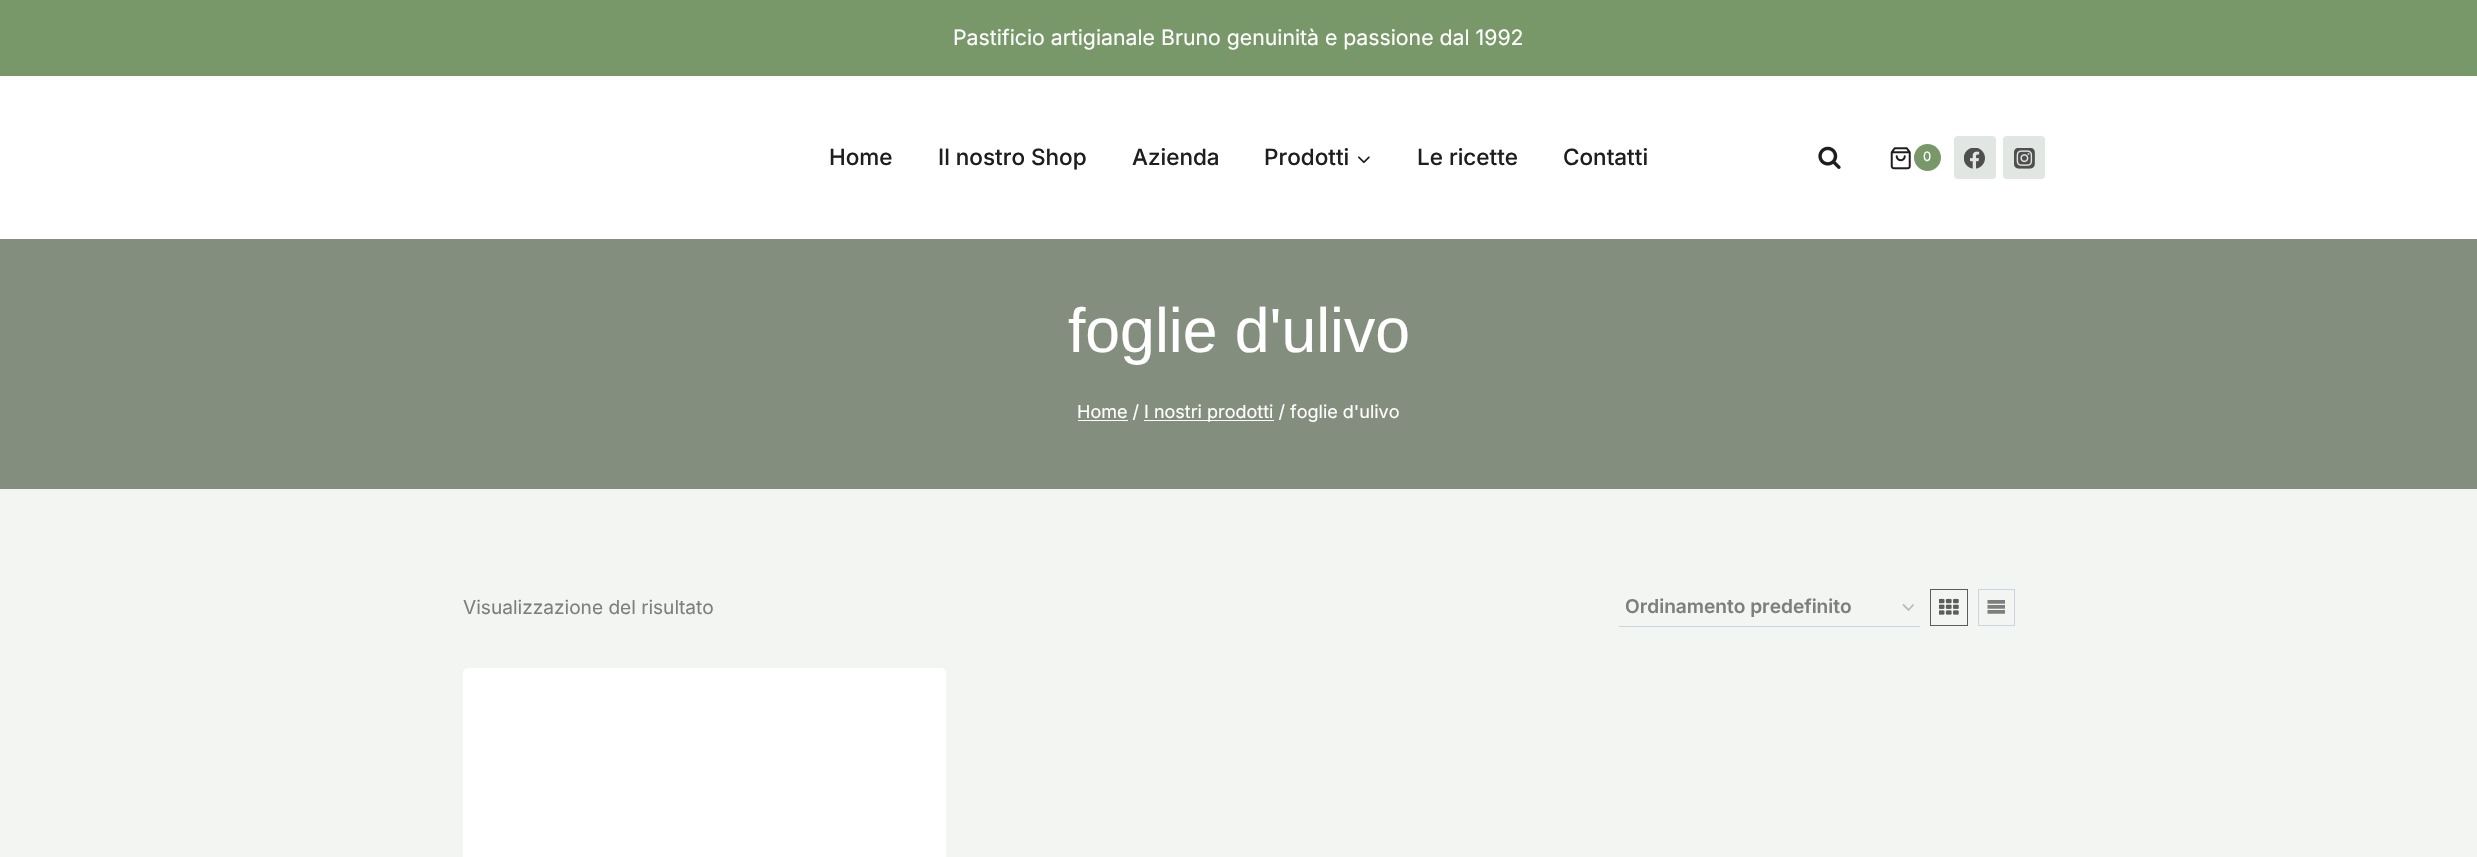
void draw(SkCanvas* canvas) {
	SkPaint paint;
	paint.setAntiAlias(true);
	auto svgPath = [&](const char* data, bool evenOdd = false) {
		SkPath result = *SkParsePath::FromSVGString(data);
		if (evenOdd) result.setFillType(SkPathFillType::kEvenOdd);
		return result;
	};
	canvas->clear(0xfff2f5f1);
	paint.setColor(0xff78986a);
	canvas->drawRect(SkRect::MakeXYWH(0, 0, 2477, 76), paint);
	SkFont f1(fontMgr->matchFamilyStyle("Inter", SkFontStyle::Normal()), 21.25);
	f1.setSubpixel(true);
	paint.setColor(0xffffffff);
	canvas->drawString("Pastificio artigianale Bruno genuinità e passione dal 1992", 953, 45, f1, paint);
	canvas->drawRect(SkRect::MakeXYWH(0, 76, 2477, 163), paint);
	SkFont f2(fontMgr->matchFamilyStyle("Inter", SkFontStyle(500, SkFontStyle::kNormal_Width, SkFontStyle::kUpright_Slant)), 22.5);
	f2.setSubpixel(true);
	paint.setColor(0xff1e1e1e);
	canvas->drawString("Home", 829, 165, f2, paint);
	canvas->drawString("Il nostro Shop", 938, 165, f2, paint);
	canvas->drawString("Azienda", 1132, 165, f2, paint);
	canvas->drawString("Prodotti", 1264, 165, f2, paint);
	canvas->drawImageRect(SkImages::DeferredFromEncodedData(SkData::MakeFromFileName("img1.png")), SkRect::MakeXYWH(1358, 156, 12, 8), SkSamplingOptions());
	canvas->drawString("Le ricette", 1417, 165, f2, paint);
	canvas->drawString("Contatti", 1563, 165, f2, paint);
	canvas->drawImageRect(SkImages::DeferredFromEncodedData(SkData::MakeFromFileName("img2.png")), SkRect::MakeXYWH(1818, 146, 23, 23), SkSamplingOptions());
	canvas->drawImageRect(SkImages::DeferredFromEncodedData(SkData::MakeFromFileName("img3.png")), SkRect::MakeXYWH(1890, 147, 21, 23), SkSamplingOptions());
	paint.setColor(0xff78986a);
	canvas->drawCircle(1927.5, 157.5, 13.5, paint);
	SkFont f3(fontMgr->matchFamilyStyle("Inter", SkFontStyle::Normal()), 13);
	f3.setSubpixel(true);
	paint.setColor(0xffffffff);
	canvas->drawString("0", 1923, 161, f3, paint);
	paint.setColor(0xffe2e6e2);
	canvas->drawRoundRect(SkRect::MakeXYWH(1954, 136, 42, 43), 4, 4, paint);
	canvas->drawImageRect(SkImages::DeferredFromEncodedData(SkData::MakeFromFileName("img4.png")), SkRect::MakeXYWH(1964, 148, 21, 21), SkSamplingOptions());
	canvas->drawRoundRect(SkRect::MakeXYWH(2003, 136, 42, 43), 4, 4, paint);
	canvas->drawImageRect(SkImages::DeferredFromEncodedData(SkData::MakeFromFileName("img5.png")), SkRect::MakeXYWH(2014, 148, 21, 21), SkSamplingOptions());
	paint.setColor(0xff848e7e);
	canvas->drawRect(SkRect::MakeXYWH(0, 239, 2477, 250), paint);
	SkFont f4(fontMgr->matchFamilyStyle("Liberation Sans", SkFontStyle::Normal()), 62.5);
	f4.setSubpixel(true);
	paint.setColor(0xffffffff);
	canvas->drawString("foglie d'ulivo", 1068, 352, f4, paint);
	SkFont f5(fontMgr->matchFamilyStyle("Inter", SkFontStyle::Normal()), 18);
	f5.setSubpixel(true);
	canvas->drawString("Home /", 1077, 418, f5, paint);
	canvas->drawRect(SkRect::MakeXYWH(1078, 420, 50, 1), paint);
	canvas->drawRect(SkRect::MakeXYWH(1144, 420, 130, 1), paint);
	canvas->drawString("I nostri prodotti / foglie d'ulivo", 1144, 418, f5, paint);
	SkFont f6(fontMgr->matchFamilyStyle("Inter", SkFontStyle::Normal()), 19.1);
	f6.setSubpixel(true);
	paint.setColor(0xff7e7e7e);
	canvas->drawString("Visualizzazione del risultato", 463, 614, f6, paint);
	paint.setStroke(true);
	paint.setStrokeWidth(1.8);
	paint.setColor(0xffbbbbbb);
	canvas->drawPath(svgPath("M1903 604.5L1908.5 610L1913.5 604.5"), paint);
	paint.setStroke(false);
	paint.setColor(0xffcbd5e0);
	canvas->drawRect(SkRect::MakeXYWH(1619, 626, 301, 1), paint);
	SkFont f7(fontMgr->matchFamilyStyle("Inter", SkFontStyle(600, SkFontStyle::kNormal_Width, SkFontStyle::kUpright_Slant)), 19.1);
	f7.setSubpixel(true);
	paint.setColor(0xff7e7e7e);
	canvas->drawString("Ordinamento predefinito", 1625, 613, f7, paint);
	paint.setStroke(true);
	paint.setStrokeWidth(1);
	paint.setColor(0xff5c5c5c);
	canvas->drawRect(SkRect::MakeXYWH(1930.5, 589.5, 37, 36), paint);
	canvas->drawImageRect(SkImages::DeferredFromEncodedData(SkData::MakeFromFileName("img6.png")), SkRect::MakeXYWH(1939, 598, 20, 17), SkSamplingOptions());
	paint.setColor(0xffcbd5e0);
	canvas->drawRect(SkRect::MakeXYWH(1978.5, 589.5, 36, 36), paint);
	canvas->drawImageRect(SkImages::DeferredFromEncodedData(SkData::MakeFromFileName("img7.png")), SkRect::MakeXYWH(1987, 600, 18, 14), SkSamplingOptions());
	paint.setStroke(false);
	paint.setColor(0xffffffff);
	canvas->drawRoundRect(SkRect::MakeXYWH(463, 668, 483, 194), 5, 5, paint);
}
